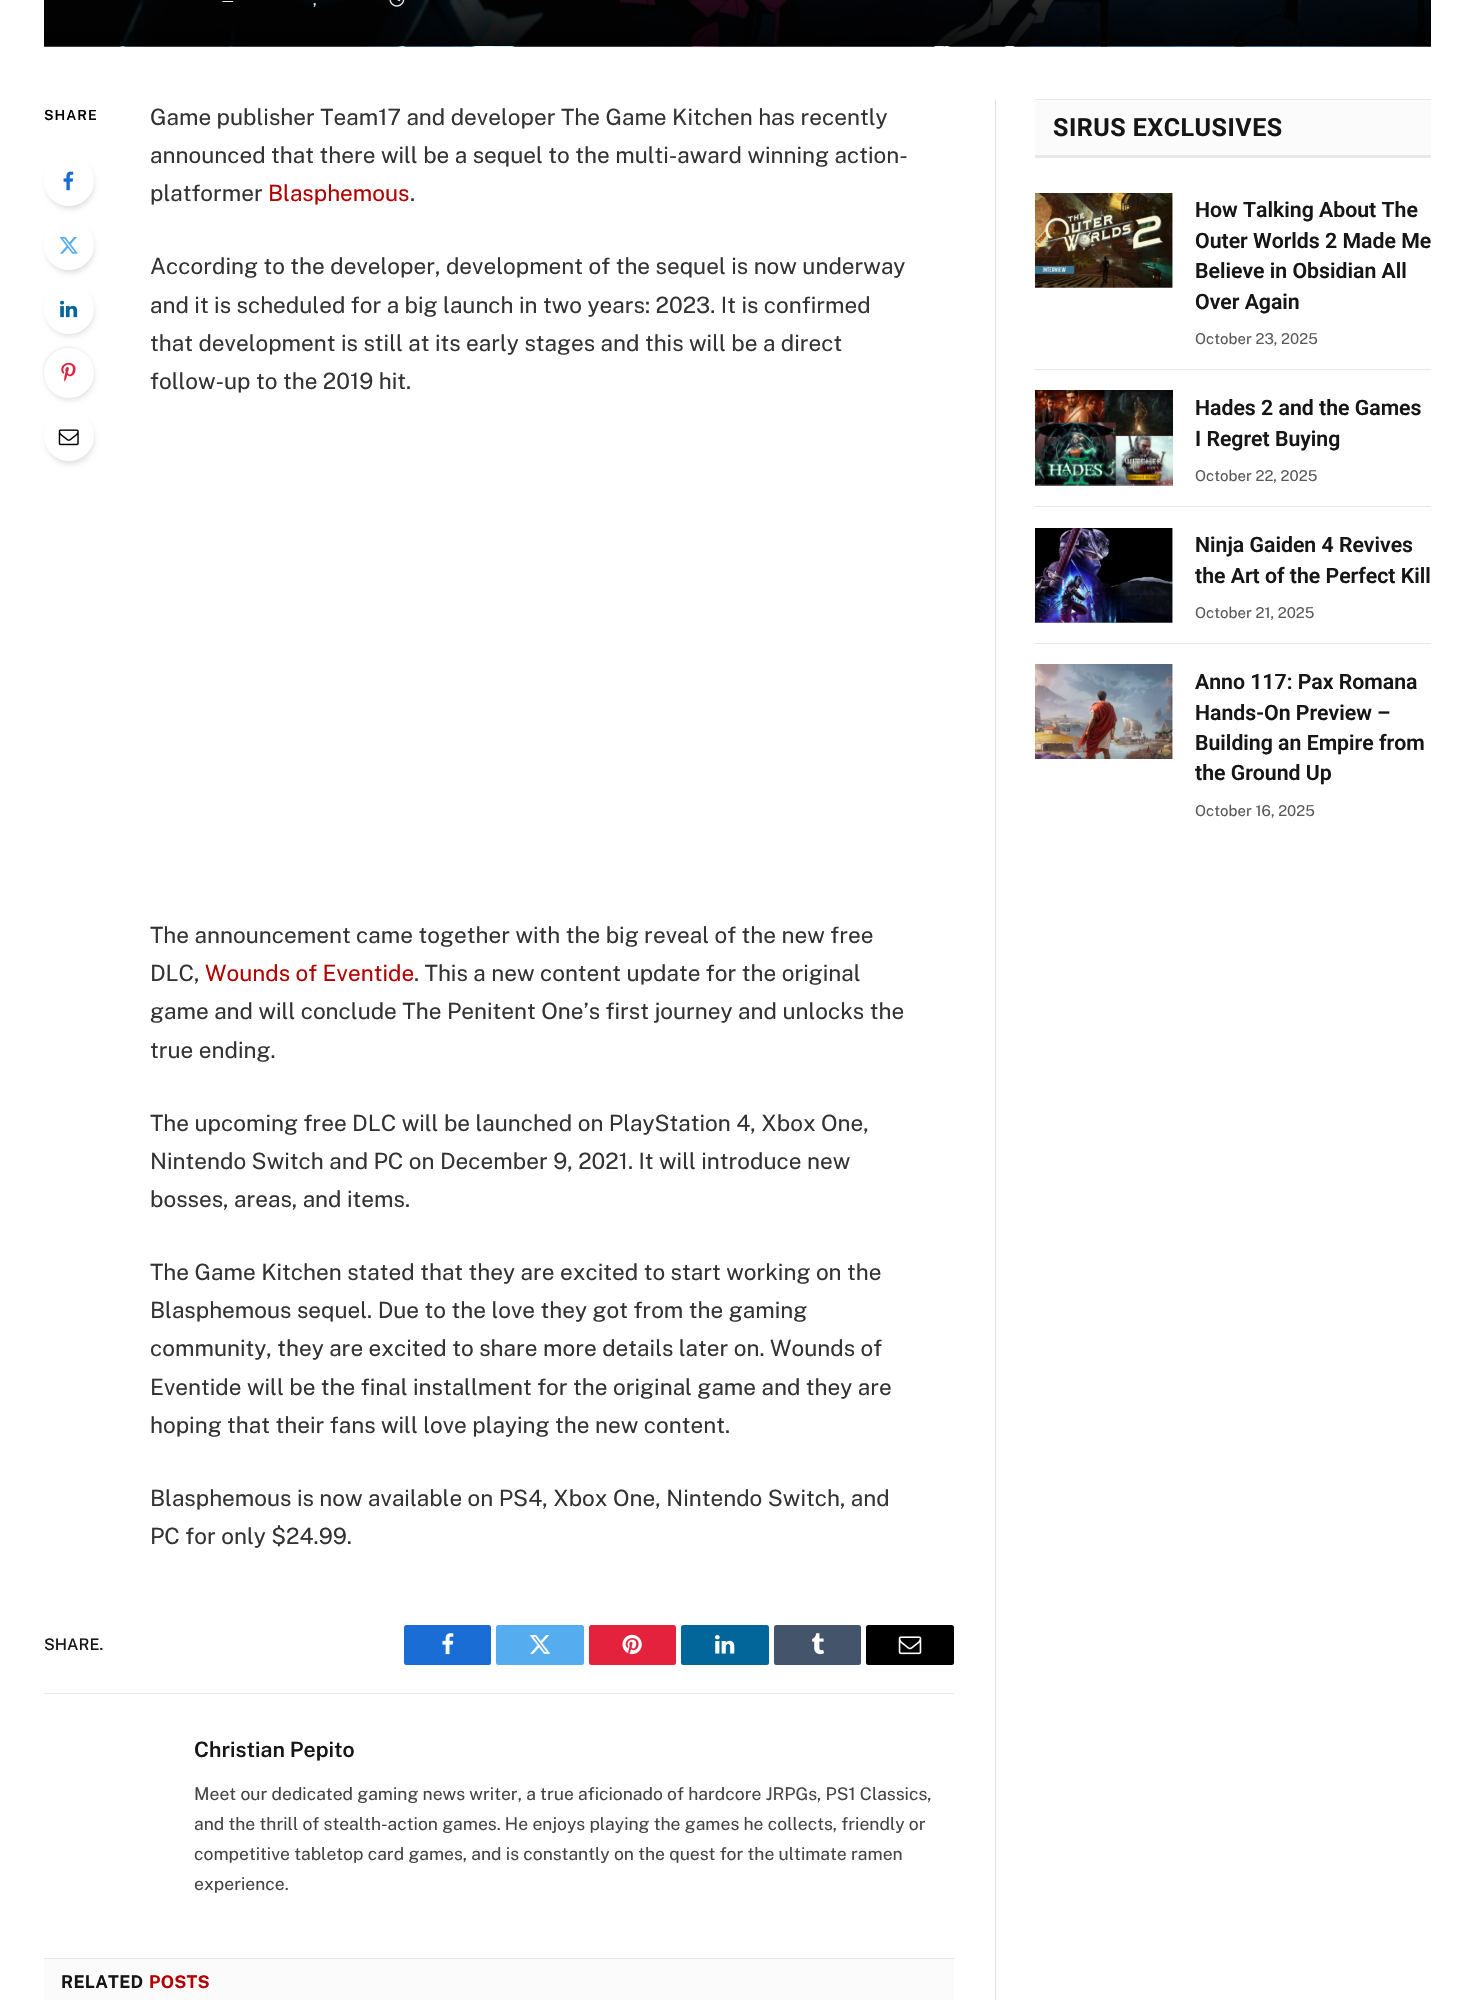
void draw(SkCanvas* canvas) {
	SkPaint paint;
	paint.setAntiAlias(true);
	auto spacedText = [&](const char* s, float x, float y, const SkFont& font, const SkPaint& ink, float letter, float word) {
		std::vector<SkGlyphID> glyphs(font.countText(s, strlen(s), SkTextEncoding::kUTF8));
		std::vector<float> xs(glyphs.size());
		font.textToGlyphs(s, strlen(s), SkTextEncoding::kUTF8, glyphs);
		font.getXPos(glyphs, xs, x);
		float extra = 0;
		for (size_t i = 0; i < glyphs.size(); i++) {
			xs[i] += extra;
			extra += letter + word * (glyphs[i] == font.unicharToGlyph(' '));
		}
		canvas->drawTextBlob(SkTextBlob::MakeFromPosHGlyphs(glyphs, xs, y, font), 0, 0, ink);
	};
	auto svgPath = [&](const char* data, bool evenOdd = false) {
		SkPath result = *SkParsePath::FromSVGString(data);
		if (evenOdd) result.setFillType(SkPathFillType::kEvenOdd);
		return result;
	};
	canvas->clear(0xffffffff);
	canvas->drawImageRect(SkImages::DeferredFromEncodedData(SkData::MakeFromFileName("img1.png")), SkRect::MakeXYWH(44, 0, 1387, 47), SkSamplingOptions());
	{
		const SkColor colors[] = {0x00000000, 0xf2000000};
		const float stops[] = {0, 1};
		const SkPoint ends[] = {{738, -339}, {738, 46}};
		paint.setShader(SkGradientShader::MakeLinear(ends, colors, stops, 2, SkTileMode::kClamp));
		paint.setAlpha(255);
	}
	canvas->drawRect(SkRect::MakeXYWH(44, 0, 1387, 46), paint);
	SkFont f1(fontMgr->matchFamilyStyle("Public Sans", SkFontStyle::Normal()), 14);
	f1.setSubpixel(true);
	paint.setShader(nullptr);
	paint.setColor(0xffeeeeee);
	canvas->drawString("—", 220, 5, f1, paint);
	SkFont f2(fontMgr->matchFamilyStyle("Public Sans", SkFontStyle::Normal()), 15);
	f2.setSubpixel(true);
	canvas->drawString(",", 313, 5, f2, paint);
	canvas->drawImageRect(SkImages::DeferredFromEncodedData(SkData::MakeFromFileName("img2.png")), SkRect::MakeXYWH(389, 0, 16, 7), SkSamplingOptions());
	SkFont f3(fontMgr->matchFamilyStyle("Public Sans", SkFontStyle(600, SkFontStyle::kNormal_Width, SkFontStyle::kUpright_Slant)), 14);
	f3.setSubpixel(true);
	paint.setColor(0xff000000);
	spacedText("SHARE", 44, 120, f3, paint, 1, 0);
	canvas->save();
	canvas->clipPath(svgPath("M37 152H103V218H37ZM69 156C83 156 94 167 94 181C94 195 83 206 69 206C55 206 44 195 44 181C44 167 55 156 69 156Z", true), true);
	paint.setColor(0x1f000000);
	paint.setMaskFilter(SkMaskFilter::MakeBlur(kNormal_SkBlurStyle, 2.5));
	canvas->drawRoundRect(SkRect::MakeXYWH(46, 161, 48, 48), 24, 24, paint);
	paint.setMaskFilter(nullptr);
	canvas->restore();
	canvas->drawImageRect(SkImages::DeferredFromEncodedData(SkData::MakeFromFileName("img3.png")), SkRect::MakeXYWH(63, 171, 11, 20), SkSamplingOptions());
	canvas->save();
	canvas->clipPath(svgPath("M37 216H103V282H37ZM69 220C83 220 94 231 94 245C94 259 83 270 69 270C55 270 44 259 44 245C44 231 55 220 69 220Z", true), true);
	paint.setMaskFilter(SkMaskFilter::MakeBlur(kNormal_SkBlurStyle, 2.5));
	canvas->drawRoundRect(SkRect::MakeXYWH(46, 225, 48, 48), 24, 24, paint);
	paint.setMaskFilter(nullptr);
	canvas->restore();
	canvas->drawImageRect(SkImages::DeferredFromEncodedData(SkData::MakeFromFileName("img4.png")), SkRect::MakeXYWH(59, 237, 19, 17), SkSamplingOptions());
	canvas->save();
	canvas->clipPath(svgPath("M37 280H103V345H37ZM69 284C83 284 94 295 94 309C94 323 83 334 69 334C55 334 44 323 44 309C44 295 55 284 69 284Z", true), true);
	paint.setMaskFilter(SkMaskFilter::MakeBlur(kNormal_SkBlurStyle, 2.5));
	canvas->drawRoundRect(SkRect::MakeXYWH(46, 289, 48, 47), 23.5, 23.5, paint);
	paint.setMaskFilter(nullptr);
	canvas->restore();
	canvas->drawImageRect(SkImages::DeferredFromEncodedData(SkData::MakeFromFileName("img5.png")), SkRect::MakeXYWH(60, 300, 18, 18), SkSamplingOptions());
	canvas->save();
	canvas->clipPath(svgPath("M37 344H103V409H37ZM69 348C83 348 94 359 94 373C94 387 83 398 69 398C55 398 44 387 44 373C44 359 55 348 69 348Z", true), true);
	paint.setMaskFilter(SkMaskFilter::MakeBlur(kNormal_SkBlurStyle, 2.5));
	canvas->drawRoundRect(SkRect::MakeXYWH(46, 353, 48, 47), 23.5, 23.5, paint);
	paint.setMaskFilter(nullptr);
	canvas->restore();
	canvas->save();
	canvas->clipPath(svgPath("M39 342H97V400H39ZM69 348C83 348 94 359 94 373C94 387 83 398 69 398C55 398 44 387 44 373C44 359 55 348 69 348Z", true), true);
	paint.setColor(0x0d000000);
	paint.setMaskFilter(SkMaskFilter::MakeBlur(kNormal_SkBlurStyle, 1));
	canvas->drawRoundRect(SkRect::MakeXYWH(43, 346, 50, 50), 25, 25, paint);
	paint.setMaskFilter(nullptr);
	canvas->restore();
	canvas->drawImageRect(SkImages::DeferredFromEncodedData(SkData::MakeFromFileName("img6.png")), SkRect::MakeXYWH(61, 362, 15, 20), SkSamplingOptions());
	canvas->save();
	canvas->clipPath(svgPath("M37 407H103V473H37ZM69 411C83 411 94 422 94 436C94 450 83 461 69 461C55 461 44 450 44 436C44 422 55 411 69 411Z", true), true);
	paint.setColor(0x1f000000);
	paint.setMaskFilter(SkMaskFilter::MakeBlur(kNormal_SkBlurStyle, 2.5));
	canvas->drawRoundRect(SkRect::MakeXYWH(46, 416, 48, 48), 24, 24, paint);
	paint.setMaskFilter(nullptr);
	canvas->restore();
	canvas->drawImageRect(SkImages::DeferredFromEncodedData(SkData::MakeFromFileName("img7.png")), SkRect::MakeXYWH(58, 429, 21, 17), SkSamplingOptions());
	SkFont f4(fontMgr->matchFamilyStyle("Public Sans", SkFontStyle::Normal()), 22.5);
	f4.setSubpixel(true);
	paint.setColor(0xff333333);
	canvas->drawString("Game publisher Team17 and developer The Game Kitchen has recently", 150, 125, f4, paint);
	canvas->drawString("announced that there will be a sequel to the multi-award winning action-", 150, 163, f4, paint);
	canvas->drawString("platformer", 150, 201, f4, paint);
	paint.setColor(0xffb30000);
	canvas->drawString("Blasphemous", 268, 201, f4, paint);
	paint.setColor(0xff333333);
	canvas->drawString(".", 410, 201, f4, paint);
	canvas->drawString("According to the developer, development of the sequel is now underway", 150, 274, f4, paint);
	canvas->drawString("and it is scheduled for a big launch in two years: 2023. It is confirmed", 150, 313, f4, paint);
	canvas->drawString("that development is still at its early stages and this will be a direct", 150, 351, f4, paint);
	canvas->drawString("follow-up to the 2019 hit.", 150, 389, f4, paint);
	canvas->drawString("The announcement came together with the big reveal of the new free", 150, 943, f4, paint);
	canvas->drawString("DLC,", 150, 981, f4, paint);
	paint.setColor(0xffb30000);
	canvas->drawString("Wounds of Eventide", 205, 981, f4, paint);
	paint.setColor(0xff333333);
	canvas->drawString(". This a new content update for the original", 414, 981, f4, paint);
	canvas->drawString("game and will conclude The Penitent One’s first journey and unlocks the", 150, 1019, f4, paint);
	canvas->drawString("true ending.", 150, 1058, f4, paint);
	canvas->drawString("The upcoming free DLC will be launched on PlayStation 4, Xbox One,", 150, 1131, f4, paint);
	canvas->drawString("Nintendo Switch and PC on December 9, 2021. It will introduce new", 150, 1169, f4, paint);
	canvas->drawString("bosses, areas, and items.", 150, 1207, f4, paint);
	canvas->drawString("The Game Kitchen stated that they are excited to start working on the", 150, 1280, f4, paint);
	canvas->drawString("Blasphemous sequel. Due to the love they got from the gaming", 150, 1318, f4, paint);
	canvas->drawString("community, they are excited to share more details later on. Wounds of", 150, 1356, f4, paint);
	canvas->drawString("Eventide will be the final installment for the original game and they are", 150, 1395, f4, paint);
	canvas->drawString("hoping that their fans will love playing the new content.", 150, 1433, f4, paint);
	canvas->drawString("Blasphemous is now available on PS4, Xbox One, Nintendo Switch, and", 150, 1506, f4, paint);
	canvas->drawString("PC for only $24.99.", 150, 1544, f4, paint);
	SkFont f5(fontMgr->matchFamilyStyle("Public Sans", SkFontStyle(500, SkFontStyle::kNormal_Width, SkFontStyle::kUpright_Slant)), 16);
	f5.setSubpixel(true);
	paint.setColor(0xff161616);
	canvas->drawString("SHARE.", 44, 1650, f5, paint);
	paint.setColor(0xff1a6dd4);
	canvas->drawRoundRect(SkRect::MakeXYWH(404, 1625, 87, 40), 2.5, 2.5, paint);
	canvas->drawImageRect(SkImages::DeferredFromEncodedData(SkData::MakeFromFileName("img8.png")), SkRect::MakeXYWH(442, 1633, 12, 22), SkSamplingOptions());
	paint.setColor(0xff55acef);
	canvas->drawRoundRect(SkRect::MakeXYWH(496, 1625, 88, 40), 2.5, 2.5, paint);
	canvas->drawImageRect(SkImages::DeferredFromEncodedData(SkData::MakeFromFileName("img9.png")), SkRect::MakeXYWH(529, 1635, 22, 19), SkSamplingOptions());
	paint.setColor(0xffe4223e);
	canvas->drawRoundRect(SkRect::MakeXYWH(589, 1625, 87, 40), 2.5, 2.5, paint);
	canvas->drawImageRect(SkImages::DeferredFromEncodedData(SkData::MakeFromFileName("img10.png")), SkRect::MakeXYWH(622, 1634, 20, 21), SkSamplingOptions());
	paint.setColor(0xff02669a);
	canvas->drawRoundRect(SkRect::MakeXYWH(681, 1625, 88, 40), 2.5, 2.5, paint);
	canvas->drawImageRect(SkImages::DeferredFromEncodedData(SkData::MakeFromFileName("img11.png")), SkRect::MakeXYWH(715, 1635, 20, 19), SkSamplingOptions());
	paint.setColor(0xff44546b);
	canvas->drawRoundRect(SkRect::MakeXYWH(774, 1625, 87, 40), 2.5, 2.5, paint);
	canvas->drawImageRect(SkImages::DeferredFromEncodedData(SkData::MakeFromFileName("img12.png")), SkRect::MakeXYWH(812, 1633, 12, 22), SkSamplingOptions());
	paint.setColor(0xff000000);
	canvas->drawRoundRect(SkRect::MakeXYWH(866, 1625, 88, 40), 2.5, 2.5, paint);
	canvas->drawImageRect(SkImages::DeferredFromEncodedData(SkData::MakeFromFileName("img13.png")), SkRect::MakeXYWH(898, 1636, 24, 19), SkSamplingOptions());
	paint.setColor(0xffe8e8e8);
	canvas->drawRect(SkRect::MakeXYWH(44, 1693, 910, 1), paint);
	SkFont f6(fontMgr->matchFamilyStyle("Public Sans", SkFontStyle(600, SkFontStyle::kNormal_Width, SkFontStyle::kUpright_Slant)), 21.25);
	f6.setSubpixel(true);
	paint.setColor(0xff161616);
	canvas->drawString("Christian Pepito", 194, 1757, f6, paint);
	SkFont f7(fontMgr->matchFamilyStyle("Public Sans", SkFontStyle::Normal()), 17.5);
	f7.setSubpixel(true);
	paint.setColor(0xff444444);
	canvas->drawString("Meet our dedicated gaming news writer, a true aficionado of hardcore JRPGs, PS1 Classics,", 194, 1800, f7, paint);
	canvas->drawString("and the thrill of stealth-action games. He enjoys playing the games he collects, friendly or", 194, 1830, f7, paint);
	canvas->drawString("competitive tabletop card games, and is constantly on the quest for the ultimate ramen", 194, 1860, f7, paint);
	canvas->drawString("experience.", 194, 1890, f7, paint);
	paint.setColor(0xfffbfbfb);
	canvas->drawRect(SkRect::MakeXYWH(44, 1959, 910, 41), paint);
	paint.setColor(0xffe8e8e8);
	canvas->drawRect(SkRect::MakeXYWH(44, 1958, 910, 1), paint);
	SkFont f8(fontMgr->matchFamilyStyle("Public Sans", SkFontStyle::Bold()), 17.5);
	f8.setSubpixel(true);
	paint.setColor(0xff161616);
	spacedText("RELATED", 61, 1988, f8, paint, 0.25, 0);
	paint.setColor(0xffb30000);
	spacedText("POSTS", 149, 1988, f8, paint, 0.25, 0);
	paint.setColor(0xffe2e2e2);
	canvas->drawRect(SkRect::MakeXYWH(995, 99, 1, 1901), paint);
	paint.setColor(0xfffbfbfb);
	canvas->drawRect(SkRect::MakeXYWH(1035, 100, 396, 55), paint);
	paint.setColor(0xffe8e8e8);
	canvas->drawRect(SkRect::MakeXYWH(1035, 99, 396, 1), paint);
	canvas->drawRect(SkRect::MakeXYWH(1035, 155, 396, 3), paint);
	SkFont f9(fontMgr->matchFamilyStyle("Roboto", SkFontStyle::Bold()), 25);
	f9.setSubpixel(true);
	paint.setColor(0xff161616);
	spacedText("SIRUS EXCLUSIVES", 1053, 136, f9, paint, 0.5, 0);
	canvas->drawImageRect(SkImages::DeferredFromEncodedData(SkData::MakeFromFileName("img14.png")), SkRect::MakeXYWH(1035, 193, 138, 95), SkSamplingOptions());
	SkFont f10(fontMgr->matchFamilyStyle("Roboto", SkFontStyle(600, SkFontStyle::kNormal_Width, SkFontStyle::kUpright_Slant)), 21.25);
	f10.setSubpixel(true);
	canvas->drawString("How Talking About The", 1195, 217, f10, paint);
	canvas->drawString("Outer Worlds 2 Made Me", 1195, 248, f10, paint);
	canvas->drawString("Believe in Obsidian All", 1195, 278, f10, paint);
	canvas->drawString("Over Again", 1195, 309, f10, paint);
	paint.setColor(0xff595959);
	canvas->drawString("October 23, 2025", 1195, 344, f2, paint);
	paint.setColor(0xffe8e8e8);
	canvas->drawRect(SkRect::MakeXYWH(1035, 369, 396, 1), paint);
	canvas->drawImageRect(SkImages::DeferredFromEncodedData(SkData::MakeFromFileName("img15.png")), SkRect::MakeXYWH(1035, 390, 138, 96), SkSamplingOptions());
	paint.setColor(0xff161616);
	canvas->drawString("Hades 2 and the Games", 1195, 415, f10, paint);
	canvas->drawString("I Regret Buying", 1195, 446, f10, paint);
	paint.setColor(0xff595959);
	canvas->drawString("October 22, 2025", 1195, 481, f2, paint);
	paint.setColor(0xffe8e8e8);
	canvas->drawRect(SkRect::MakeXYWH(1035, 506, 396, 1), paint);
	canvas->drawImageRect(SkImages::DeferredFromEncodedData(SkData::MakeFromFileName("img16.png")), SkRect::MakeXYWH(1035, 528, 138, 95), SkSamplingOptions());
	paint.setColor(0xff161616);
	canvas->drawString("Ninja Gaiden 4 Revives", 1195, 552, f10, paint);
	canvas->drawString("the Art of the Perfect Kill", 1195, 583, f10, paint);
	paint.setColor(0xff595959);
	canvas->drawString("October 21, 2025", 1195, 618, f2, paint);
	paint.setColor(0xffe8e8e8);
	canvas->drawRect(SkRect::MakeXYWH(1035, 643, 396, 1), paint);
	canvas->drawImageRect(SkImages::DeferredFromEncodedData(SkData::MakeFromFileName("img17.png")), SkRect::MakeXYWH(1035, 664, 138, 95), SkSamplingOptions());
	paint.setColor(0xff161616);
	canvas->drawString("Anno 117: Pax Romana", 1195, 689, f10, paint);
	canvas->drawString("Hands-On Preview –", 1195, 720, f10, paint);
	canvas->drawString("Building an Empire from", 1195, 750, f10, paint);
	canvas->drawString("the Ground Up", 1195, 780, f10, paint);
	paint.setColor(0xff595959);
	canvas->drawString("October 16, 2025", 1195, 816, f2, paint);
}
